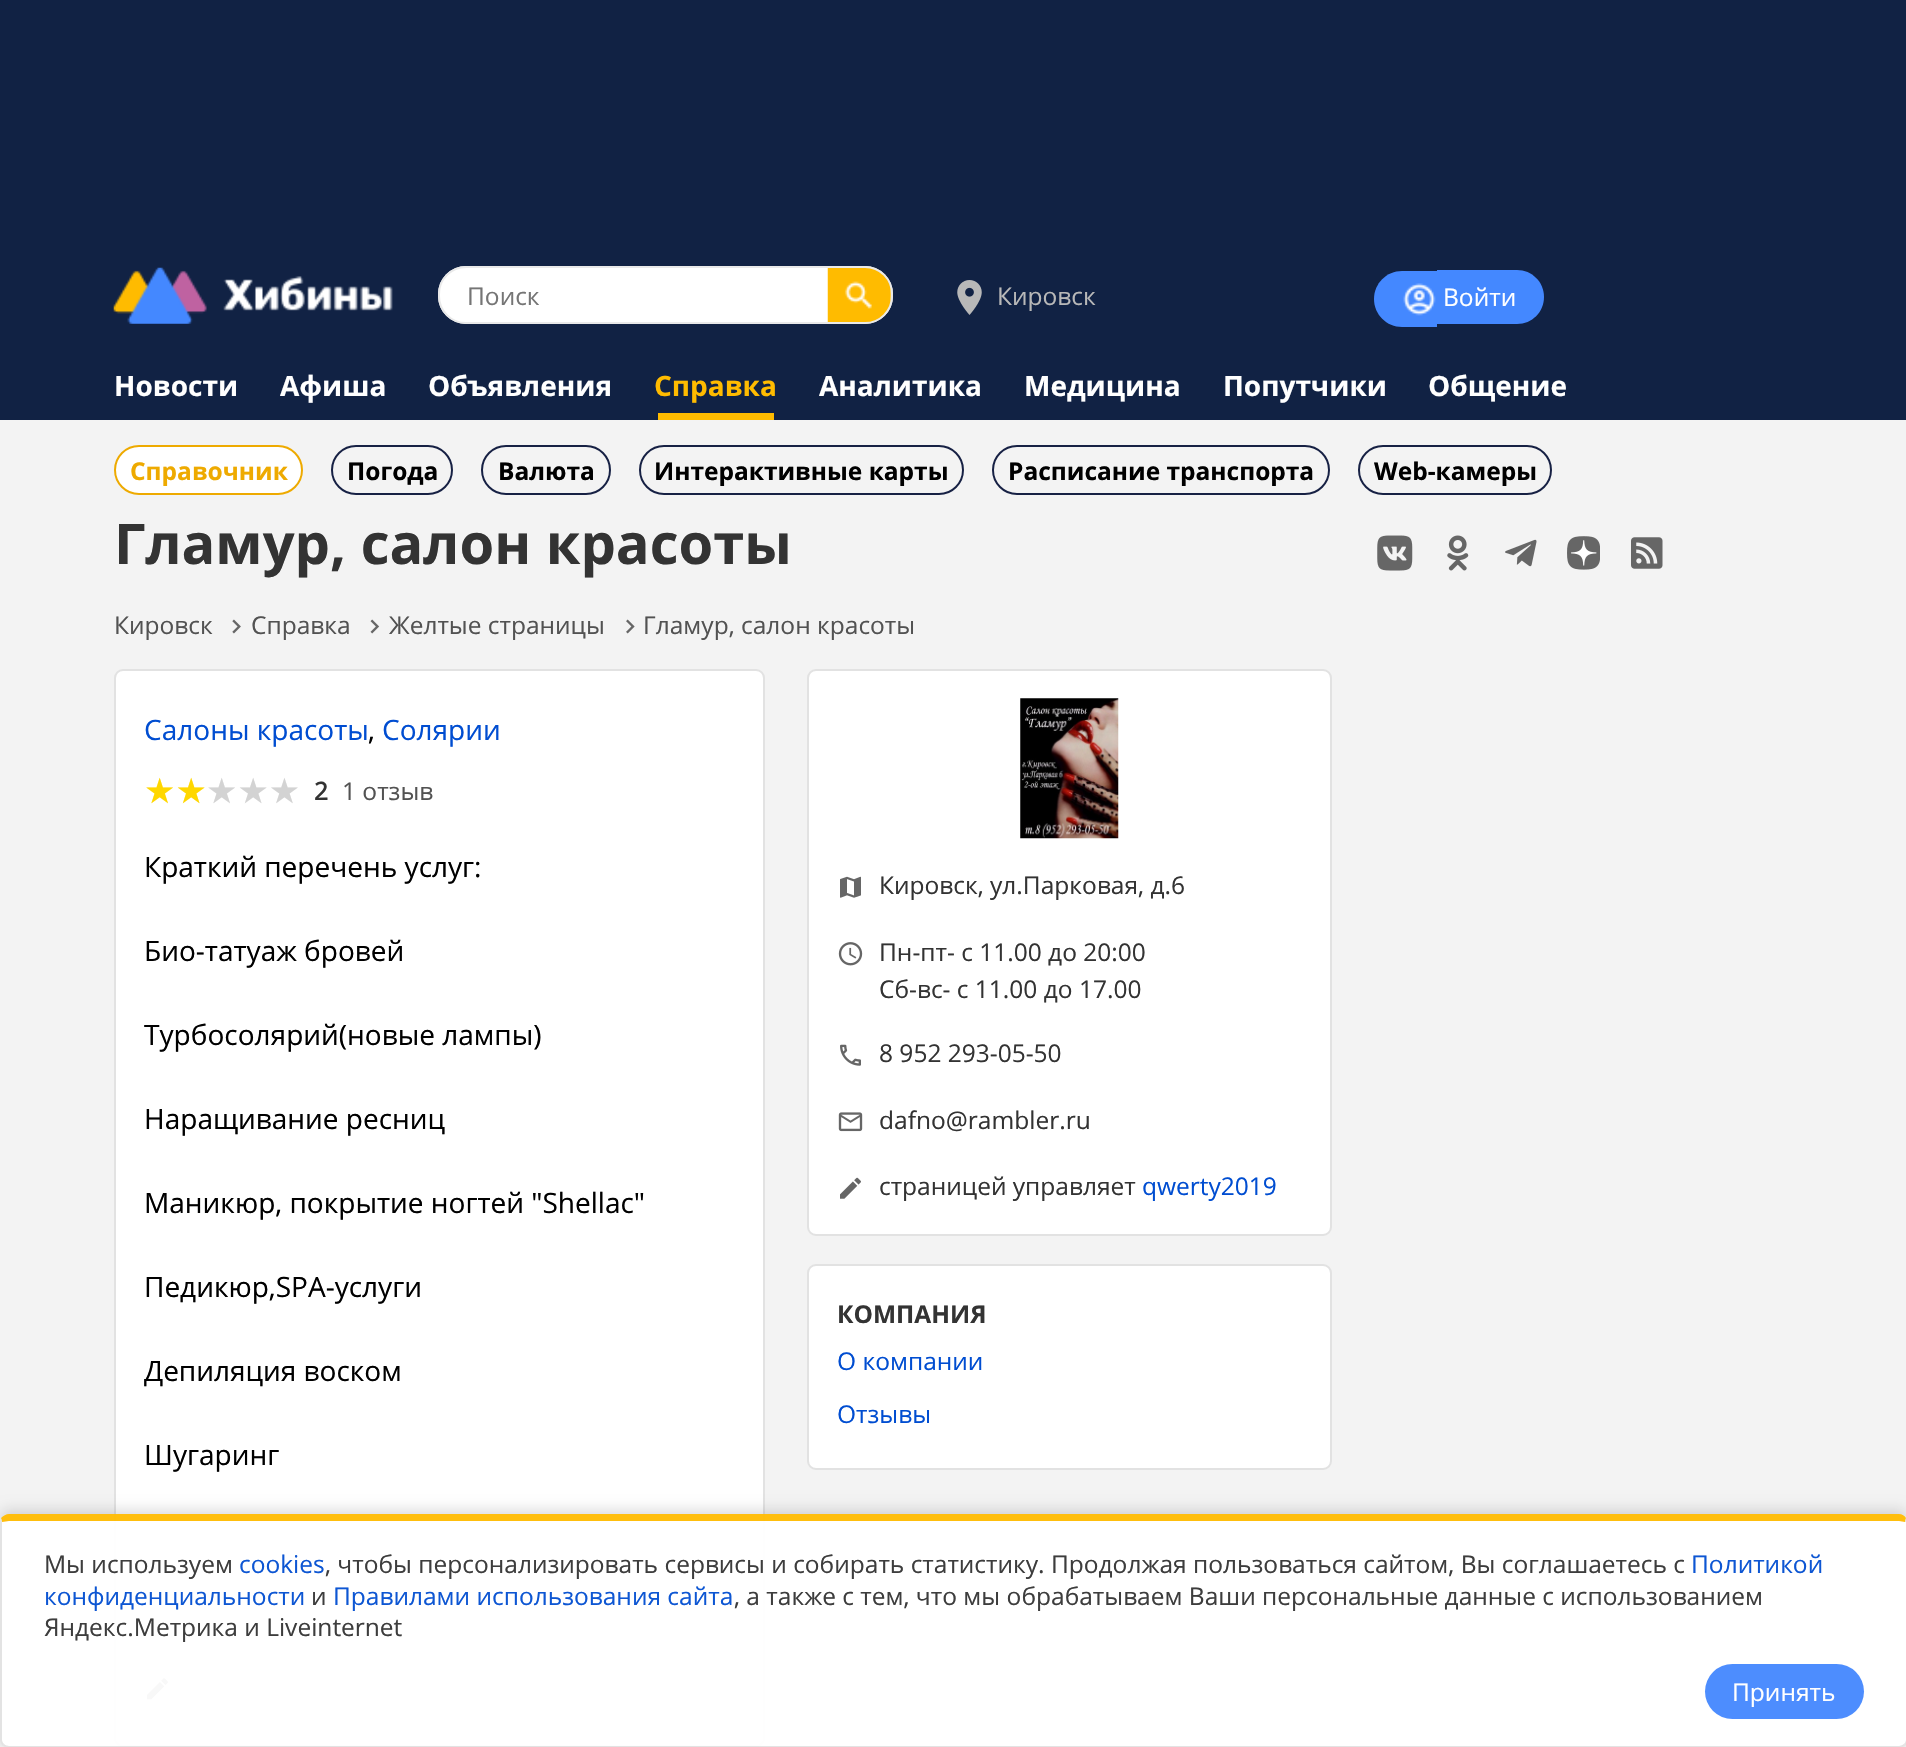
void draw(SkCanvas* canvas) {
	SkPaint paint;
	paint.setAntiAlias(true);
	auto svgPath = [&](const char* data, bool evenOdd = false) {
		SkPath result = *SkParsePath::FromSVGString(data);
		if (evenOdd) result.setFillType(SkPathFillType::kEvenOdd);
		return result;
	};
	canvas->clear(0xfff3f3f3);
	paint.setColor(0xff112244);
	canvas->drawRect(SkRect::MakeXYWH(0, 0, 1906, 420), paint);
	canvas->drawImageRect(SkImages::DeferredFromEncodedData(SkData::MakeFromFileName("img1.png")), SkRect::MakeXYWH(113, 267, 280, 57), SkSamplingOptions());
	paint.setColor(0xffffffff);
	canvas->drawRoundRect(SkRect::MakeXYWH(438, 266, 455, 58), 28, 28, paint);
	canvas->drawImageRect(SkImages::DeferredFromEncodedData(SkData::MakeFromFileName("img2.png")), SkRect::MakeXYWH(827, 267, 64, 57), SkSamplingOptions());
	paint.setStroke(true);
	paint.setStrokeWidth(2);
	paint.setColor(0xffe9e9e9);
	canvas->drawRoundRect(SkRect::MakeXYWH(439, 267, 453, 56), 27, 27, paint);
	SkFont f1(fontMgr->matchFamilyStyle("Open Sans", SkFontStyle::Normal()), 24.5);
	f1.setSubpixel(true);
	paint.setStroke(false);
	paint.setColor(0xff757575);
	canvas->drawString("Поиск", 467, 305, f1, paint);
	canvas->drawImageRect(SkImages::DeferredFromEncodedData(SkData::MakeFromFileName("img3.png")), SkRect::MakeXYWH(957, 280, 25, 35), SkSamplingOptions());
	paint.setColor(0xffb8b8b8);
	canvas->drawString("Кировск", 997, 305, f1, paint);
	paint.setColor(0xff4488ff);
	canvas->drawPath(svgPath("M1402 271H1437V327H1402C1386.5 327 1374 314.5 1374 299C1374 283.5 1386.5 271 1402 271Z"), paint);
	canvas->drawImageRect(SkImages::DeferredFromEncodedData(SkData::MakeFromFileName("img4.png")), SkRect::MakeXYWH(1403, 283, 33, 33), SkSamplingOptions());
	canvas->drawPath(svgPath("M1437 270H1517C1532 270 1544 282 1544 297C1544 312 1532 324 1517 324H1437Z"), paint);
	paint.setColor(0xffffffff);
	canvas->drawString("Войти", 1443, 306, f1, paint);
	SkFont f2(fontMgr->matchFamilyStyle("Open Sans", SkFontStyle::Bold()), 28);
	f2.setSubpixel(true);
	canvas->drawString("Новости", 114, 396, f2, paint);
	canvas->drawString("Афиша", 280, 396, f2, paint);
	canvas->drawString("Объявления", 428, 396, f2, paint);
	paint.setColor(0xffffbb00);
	canvas->drawString("Справка", 654, 396, f2, paint);
	canvas->drawRect(SkRect::MakeXYWH(658, 413, 116, 7), paint);
	paint.setColor(0xffffffff);
	canvas->drawString("Аналитика", 819, 396, f2, paint);
	canvas->drawString("Медицина", 1024, 396, f2, paint);
	canvas->drawString("Попутчики", 1223, 396, f2, paint);
	canvas->drawString("Общение", 1428, 396, f2, paint);
	canvas->drawRoundRect(SkRect::MakeXYWH(115, 446, 187, 48), 24, 24, paint);
	paint.setStroke(true);
	paint.setColor(0xffeeaa00);
	canvas->drawRoundRect(SkRect::MakeXYWH(115, 446, 187, 48), 24, 24, paint);
	SkFont f3(fontMgr->matchFamilyStyle("Open Sans", SkFontStyle::Bold()), 24.5);
	f3.setSubpixel(true);
	paint.setStroke(false);
	canvas->drawString("Справочник", 130, 480, f3, paint);
	paint.setStroke(true);
	paint.setColor(0xff172144);
	canvas->drawRoundRect(SkRect::MakeXYWH(332, 446, 120, 48), 24, 24, paint);
	paint.setStroke(false);
	paint.setColor(0xff000000);
	canvas->drawString("Погода", 347, 480, f3, paint);
	paint.setStroke(true);
	paint.setColor(0xff172144);
	canvas->drawRoundRect(SkRect::MakeXYWH(482, 446, 128, 48), 24, 24, paint);
	paint.setStroke(false);
	paint.setColor(0xff000000);
	canvas->drawString("Валюта", 498, 480, f3, paint);
	paint.setStroke(true);
	paint.setColor(0xff172144);
	canvas->drawRoundRect(SkRect::MakeXYWH(640, 446, 323, 48), 24, 24, paint);
	paint.setStroke(false);
	paint.setColor(0xff000000);
	canvas->drawString("Интерактивные карты", 654, 480, f3, paint);
	paint.setStroke(true);
	paint.setColor(0xff172144);
	canvas->drawRoundRect(SkRect::MakeXYWH(993, 446, 336, 48), 24, 24, paint);
	paint.setStroke(false);
	paint.setColor(0xff000000);
	canvas->drawString("Расписание транспорта", 1008, 480, f3, paint);
	paint.setStroke(true);
	paint.setColor(0xff172144);
	canvas->drawRoundRect(SkRect::MakeXYWH(1359, 446, 192, 48), 24, 24, paint);
	paint.setStroke(false);
	paint.setColor(0xff000000);
	canvas->drawString("Web-камеры", 1374, 480, f3, paint);
	SkFont f4(fontMgr->matchFamilyStyle("Open Sans", SkFontStyle::Bold()), 56);
	f4.setSubpixel(true);
	paint.setColor(0xff333333);
	canvas->drawString("Гламур, салон красоты", 114, 564, f4, paint);
	paint.setColor(0xff525252);
	canvas->drawString("Кировск", 114, 634, f1, paint);
	canvas->drawImageRect(SkImages::DeferredFromEncodedData(SkData::MakeFromFileName("img5.png")), SkRect::MakeXYWH(232, 619, 9, 15), SkSamplingOptions());
	canvas->drawString("Справка", 251, 634, f1, paint);
	canvas->drawImageRect(SkImages::DeferredFromEncodedData(SkData::MakeFromFileName("img6.png")), SkRect::MakeXYWH(370, 619, 10, 15), SkSamplingOptions());
	canvas->drawString("Желтые страницы", 389, 634, f1, paint);
	canvas->drawImageRect(SkImages::DeferredFromEncodedData(SkData::MakeFromFileName("img7.png")), SkRect::MakeXYWH(626, 619, 9, 15), SkSamplingOptions());
	canvas->drawString("Гламур, салон красоты", 643, 634, f1, paint);
	paint.setColor(0xffffffff);
	canvas->drawRoundRect(SkRect::MakeXYWH(115, 670, 649, 1076), 8, 8, paint);
	paint.setStroke(true);
	paint.setColor(0xffe2e2e2);
	canvas->drawRoundRect(SkRect::MakeXYWH(115, 670, 649, 1076), 8, 8, paint);
	SkFont f5(fontMgr->matchFamilyStyle("Open Sans", SkFontStyle::Normal()), 28);
	f5.setSubpixel(true);
	paint.setStroke(false);
	paint.setColor(0xff004dd1);
	canvas->drawString("Салоны красоты", 144, 740, f5, paint);
	paint.setColor(0xff000000);
	canvas->drawString(",", 368, 740, f5, paint);
	paint.setColor(0xff004dd1);
	canvas->drawString("Солярии", 382, 740, f5, paint);
	SkFont f6(fontMgr->matchFamilyStyle("DejaVu Sans", SkFontStyle::Normal()), 35);
	f6.setSubpixel(true);
	paint.setColor(0xffffd700);
	canvas->drawString("★★", 144, 803, f6, paint);
	paint.setColor(0xffd3d3d3);
	canvas->drawString("★★★", 206, 803, f6, paint);
	SkFont f7(fontMgr->matchFamilyStyle("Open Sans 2", SkFontStyle::Bold()), 24.5);
	f7.setSubpixel(true);
	paint.setColor(0xff333333);
	canvas->drawString("2", 314, 800, f7, paint);
	paint.setColor(0xff525252);
	canvas->drawString("1 отзыв", 342, 800, f1, paint);
	paint.setColor(0xff000000);
	canvas->drawString("Краткий перечень услуг:", 144, 877, f5, paint);
	canvas->drawString("Био-татуаж бровей", 144, 961, f5, paint);
	canvas->drawString("Турбосолярий(новые лампы)", 144, 1045, f5, paint);
	canvas->drawString("Наращивание ресниц", 144, 1129, f5, paint);
	canvas->drawString("Маникюр, покрытие ногтей \"Shellac\"", 144, 1213, f5, paint);
	canvas->drawString("Педикюр,SPA-услуги", 144, 1297, f5, paint);
	canvas->save();
	canvas->clipRect(SkRect::MakeXYWH(144, 835, 591, 819));
	canvas->drawString("Депиляция воском", 144, 1381, f5, paint);
	canvas->restore();
	canvas->drawString("Шугаринг", 144, 1465, f5, paint);
	canvas->drawImageRect(SkImages::DeferredFromEncodedData(SkData::MakeFromFileName("img8.png")), SkRect::MakeXYWH(147, 1678, 21, 22), SkSamplingOptions());
	paint.setColor(0xffffffff);
	canvas->drawRoundRect(SkRect::MakeXYWH(808, 670, 523, 565), 8, 8, paint);
	paint.setStroke(true);
	paint.setColor(0xffe2e2e2);
	canvas->drawRoundRect(SkRect::MakeXYWH(808, 670, 523, 565), 8, 8, paint);
	canvas->drawImageRect(SkImages::DeferredFromEncodedData(SkData::MakeFromFileName("img9.png")), SkRect::MakeXYWH(1020, 698, 99, 141), SkSamplingOptions());
	canvas->drawImageRect(SkImages::DeferredFromEncodedData(SkData::MakeFromFileName("img10.png")), SkRect::MakeXYWH(840, 876, 21, 22), SkSamplingOptions());
	paint.setStroke(false);
	paint.setColor(0xff333333);
	canvas->drawString("Кировск, ул.Парковая, д.6", 879, 894, f1, paint);
	canvas->drawImageRect(SkImages::DeferredFromEncodedData(SkData::MakeFromFileName("img11.png")), SkRect::MakeXYWH(838, 942, 25, 24), SkSamplingOptions());
	canvas->drawString("Пн-пт- с 11.00 до 20:00", 879, 961, f1, paint);
	canvas->drawString("Сб-вс- с 11.00 до 17.00", 879, 998, f1, paint);
	canvas->drawImageRect(SkImages::DeferredFromEncodedData(SkData::MakeFromFileName("img12.png")), SkRect::MakeXYWH(840, 1044, 21, 22), SkSamplingOptions());
	canvas->drawString("8 952 293-05-50", 879, 1062, f1, paint);
	canvas->drawImageRect(SkImages::DeferredFromEncodedData(SkData::MakeFromFileName("img13.png")), SkRect::MakeXYWH(838, 1112, 25, 20), SkSamplingOptions());
	canvas->drawString("dafno@rambler.ru", 879, 1129, f1, paint);
	canvas->drawImageRect(SkImages::DeferredFromEncodedData(SkData::MakeFromFileName("img14.png")), SkRect::MakeXYWH(840, 1177, 21, 22), SkSamplingOptions());
	canvas->drawString("cтраницей управляет", 879, 1195, f1, paint);
	paint.setColor(0xff004dd1);
	canvas->drawString("qwerty2019", 1142, 1195, f1, paint);
	paint.setColor(0xffffffff);
	canvas->drawRoundRect(SkRect::MakeXYWH(808, 1265, 523, 204), 8, 8, paint);
	paint.setStroke(true);
	paint.setColor(0xffe2e2e2);
	canvas->drawRoundRect(SkRect::MakeXYWH(808, 1265, 523, 204), 8, 8, paint);
	paint.setStroke(false);
	paint.setColor(0xff333333);
	canvas->drawString("КОМПАНИЯ", 837, 1323, f3, paint);
	paint.setColor(0xff004dd1);
	canvas->drawString("О компании", 837, 1370, f1, paint);
	canvas->drawString("Отзывы", 837, 1423, f1, paint);
	canvas->drawImageRect(SkImages::DeferredFromEncodedData(SkData::MakeFromFileName("img15.png")), SkRect::MakeXYWH(1377, 535, 36, 36), SkSamplingOptions());
	canvas->drawImageRect(SkImages::DeferredFromEncodedData(SkData::MakeFromFileName("img16.png")), SkRect::MakeXYWH(1447, 535, 22, 36), SkSamplingOptions());
	canvas->drawImageRect(SkImages::DeferredFromEncodedData(SkData::MakeFromFileName("img17.png")), SkRect::MakeXYWH(1505, 539, 32, 28), SkSamplingOptions());
	canvas->drawImageRect(SkImages::DeferredFromEncodedData(SkData::MakeFromFileName("img18.png")), SkRect::MakeXYWH(1567, 536, 33, 34), SkSamplingOptions());
	canvas->drawImageRect(SkImages::DeferredFromEncodedData(SkData::MakeFromFileName("img19.png")), SkRect::MakeXYWH(1631, 537, 32, 32), SkSamplingOptions());
	canvas->save();
	canvas->clipPath(svgPath("M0 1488H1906V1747H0ZM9 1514H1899C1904 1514 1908 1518 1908 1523V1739C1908 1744 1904 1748 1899 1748H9C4 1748 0 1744 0 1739V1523C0 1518 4 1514 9 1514Z", true), true);
	paint.setColor(0x24000000);
	paint.setMaskFilter(SkMaskFilter::MakeBlur(kNormal_SkBlurStyle, 7));
	canvas->drawRoundRect(SkRect::MakeXYWH(0, 1510, 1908, 235), 9, 9, paint);
	paint.setMaskFilter(nullptr);
	canvas->restore();
	paint.setColor(0xf2ffffff);
	canvas->drawPath(svgPath("M9 1521H1899C1903 1521 1906 1522 1906 1522V1740C1906 1743 1903 1746 1899 1746H9C5 1746 2 1743 2 1740V1522C2 1522 5 1521 9 1521Z"), paint);
	paint.setColor(0xf2ffbb00);
	canvas->drawPath(svgPath("M9 1514C6 1514 3 1516 1 1518L2 1522L9 1521H1899L1905 1522L1906 1518C1905 1516 1902 1514 1899 1514Z"), paint);
	paint.setColor(0xffe3e3e3);
	canvas->drawPath(svgPath("M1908 1742L1905 1746L1904 1744C1905 1743 1906 1742 1906 1740V1522H1905L1906 1518L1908 1520Z"), paint);
	paint.setColor(0xf2e2e2e2);
	canvas->drawPath(svgPath("M1905 1746C1903 1747 1901 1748 1899 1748H9C7 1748 4 1747 3 1746L4 1744C5 1745 7 1746 9 1746H1899C1901 1746 1902 1745 1904 1744Z"), paint);
	paint.setColor(0xffe3e3e3);
	canvas->drawPath(svgPath("M0 1522V1740C0 1742 1 1744 3 1746L4 1744C3 1743 2 1742 2 1740V1522L1 1518Z"), paint);
	paint.setColor(0xff3d3d3d);
	canvas->drawString("Мы используем", 44, 1573, f1, paint);
	paint.setColor(0xff0d56d3);
	canvas->drawString("cookies", 239, 1573, f1, paint);
	paint.setColor(0xff3d3d3d);
	canvas->drawString(", чтобы персонализировать сервисы и собирать статистику. Продолжая пользоваться сайтом, Вы соглашаетесь с", 325, 1573, f1, paint);
	paint.setColor(0xff0d56d3);
	canvas->drawString("Политикой", 1691, 1573, f1, paint);
	canvas->drawString("конфиденциальности", 44, 1605, f1, paint);
	paint.setColor(0xff3d3d3d);
	canvas->drawString("и", 311, 1605, f1, paint);
	paint.setColor(0xff0d56d3);
	canvas->drawString("Правилами использования сайта", 333, 1605, f1, paint);
	paint.setColor(0xff3d3d3d);
	canvas->drawString(", а также с тем, что мы обрабатываем Ваши персональные данные с использованием", 734, 1605, f1, paint);
	canvas->drawString("Яндекс.Метрика и Liveinternet", 44, 1636, f1, paint);
	paint.setColor(0xff4d8dfe);
	canvas->drawRoundRect(SkRect::MakeXYWH(1705, 1664, 159, 55), 27.5, 27.5, paint);
	paint.setColor(0xffffffff);
	canvas->drawString("Принять", 1732, 1701, f1, paint);
}
